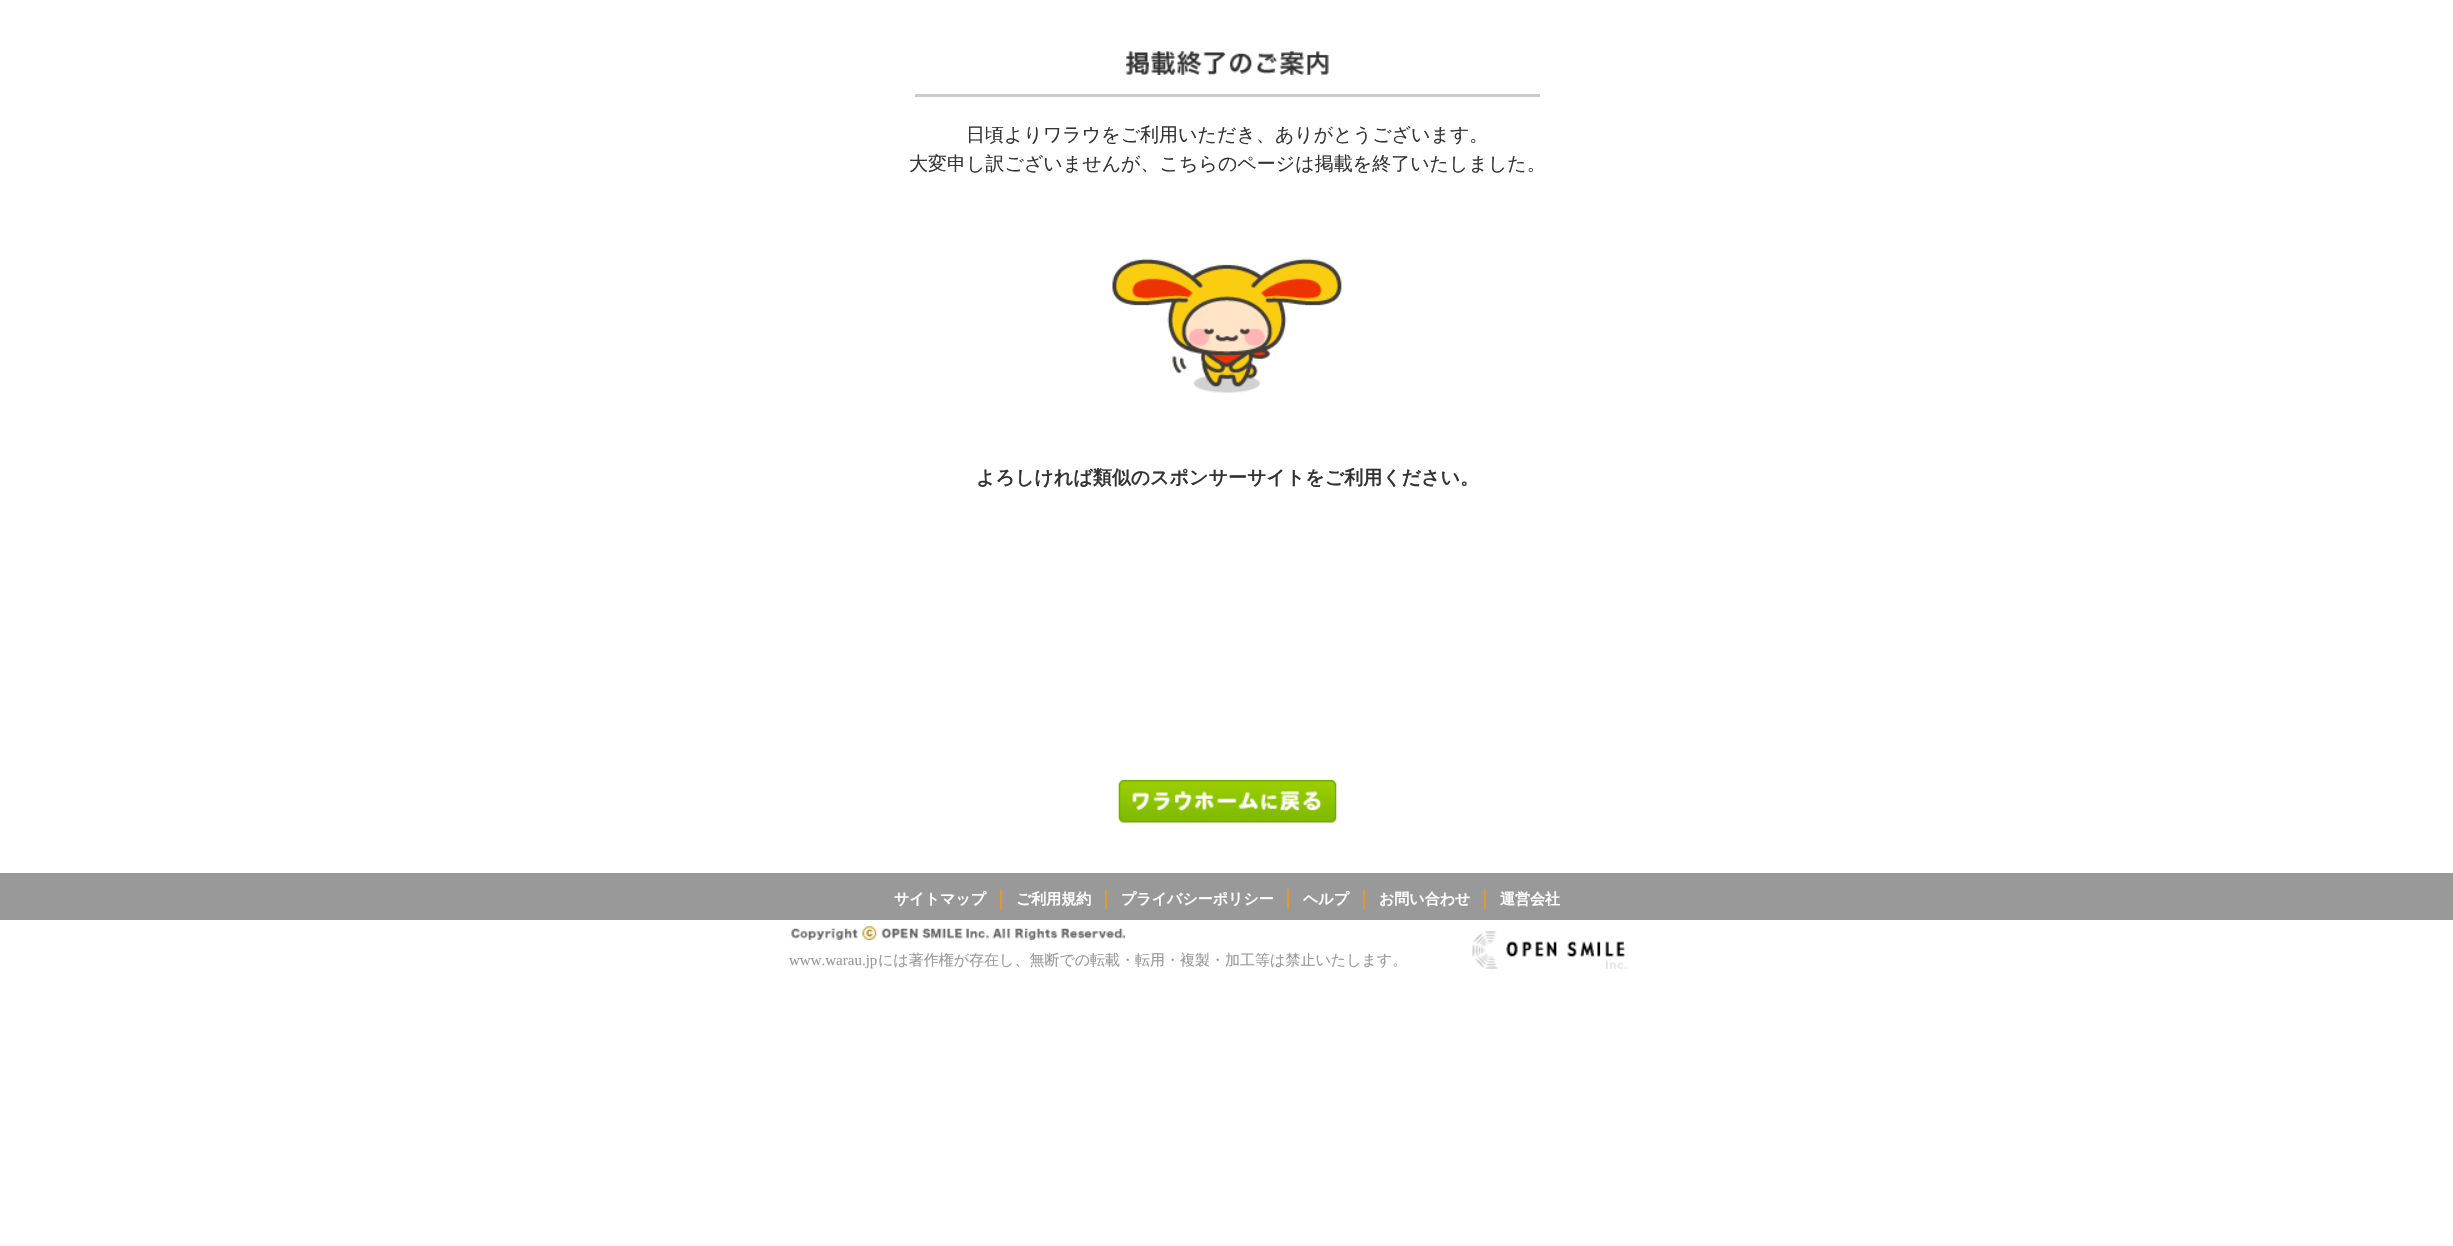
void draw(SkCanvas* canvas) {
	SkPaint paint;
	paint.setAntiAlias(true);
	canvas->clear(0xffffffff);
	paint.setColor(0xffcccccc);
	canvas->drawRect(SkRect::MakeXYWH(915, 94, 625, 3), paint);
	canvas->drawImageRect(SkImages::DeferredFromEncodedData(SkData::MakeFromFileName("img1.png")), SkRect::MakeXYWH(1126, 50, 203, 25), SkSamplingOptions());
	SkFont f1(fontMgr->matchFamilyStyle("WenQuanYi Zen Hei", SkFontStyle(500, SkFontStyle::kNormal_Width, SkFontStyle::kUpright_Slant)), 19);
	f1.setSubpixel(true);
	paint.setColor(0xff333333);
	canvas->drawString("日頃よりワラウをご利用いただき、ありがとうございます。", 966, 141, f1, paint);
	canvas->drawString("大変申し訳ございませんが、こちらのページは掲載を終了いたしました。", 909, 170, f1, paint);
	canvas->drawImageRect(SkImages::DeferredFromEncodedData(SkData::MakeFromFileName("img2.png")), SkRect::MakeXYWH(1112, 258, 230, 135), SkSamplingOptions());
	SkFont f2(fontMgr->matchFamilyStyle("WenQuanYi Zen Hei", SkFontStyle::Bold()), 19);
	f2.setSubpixel(true);
	canvas->drawString("よろしければ類似のスポンサーサイトをご利用ください。", 976, 484, f2, paint);
	canvas->drawImageRect(SkImages::DeferredFromEncodedData(SkData::MakeFromFileName("img3.png")), SkRect::MakeXYWH(1118, 780, 219, 43), SkSamplingOptions());
	paint.setColor(0xff999999);
	canvas->drawRect(SkRect::MakeXYWH(0, 873, 2453, 47), paint);
	SkFont f3(fontMgr->matchFamilyStyle("WenQuanYi Zen Hei", SkFontStyle::Bold()), 15);
	f3.setSubpixel(true);
	paint.setColor(0xffffffff);
	canvas->drawString("サイトマップ", 894, 904, f3, paint);
	SkFont f4(fontMgr->matchFamilyStyle("WenQuanYi Zen Hei", SkFontStyle(500, SkFontStyle::kNormal_Width, SkFontStyle::kUpright_Slant)), 20);
	f4.setSubpixel(true);
	paint.setColor(0xffff9900);
	canvas->drawString("｜", 991, 904, f4, paint);
	paint.setColor(0xffffffff);
	canvas->drawString("ご利用規約", 1016, 904, f3, paint);
	paint.setColor(0xffff9900);
	canvas->drawString("｜", 1096, 904, f4, paint);
	paint.setColor(0xffffffff);
	canvas->drawString("プライバシーポリシー", 1121, 904, f3, paint);
	paint.setColor(0xffff9900);
	canvas->drawString("｜", 1278, 904, f4, paint);
	paint.setColor(0xffffffff);
	canvas->drawString("ヘルプ", 1303, 904, f3, paint);
	paint.setColor(0xffff9900);
	canvas->drawString("｜", 1354, 904, f4, paint);
	paint.setColor(0xffffffff);
	canvas->drawString("お問い合わせ", 1379, 904, f3, paint);
	paint.setColor(0xffff9900);
	canvas->drawString("｜", 1475, 904, f4, paint);
	paint.setColor(0xffffffff);
	canvas->drawString("運営会社", 1500, 904, f3, paint);
	canvas->drawImageRect(SkImages::DeferredFromEncodedData(SkData::MakeFromFileName("img4.png")), SkRect::MakeXYWH(791, 926, 335, 14), SkSamplingOptions());
	SkFont f5(fontMgr->matchFamilyStyle("Liberation Serif", SkFontStyle::Normal()), 15);
	f5.setSubpixel(true);
	paint.setColor(0xff999999);
	canvas->drawString("www.warau.jp", 789, 965, f5, paint);
	SkFont f6(fontMgr->matchFamilyStyle("WenQuanYi Zen Hei", SkFontStyle(500, SkFontStyle::kNormal_Width, SkFontStyle::kUpright_Slant)), 15);
	f6.setSubpixel(true);
	canvas->drawString("には著作権が存在し、無断での転載・転用・複製・加工等は禁止いたします。", 878, 965, f6, paint);
	canvas->drawImageRect(SkImages::DeferredFromEncodedData(SkData::MakeFromFileName("img5.png")), SkRect::MakeXYWH(1472, 931, 155, 38), SkSamplingOptions());
}
